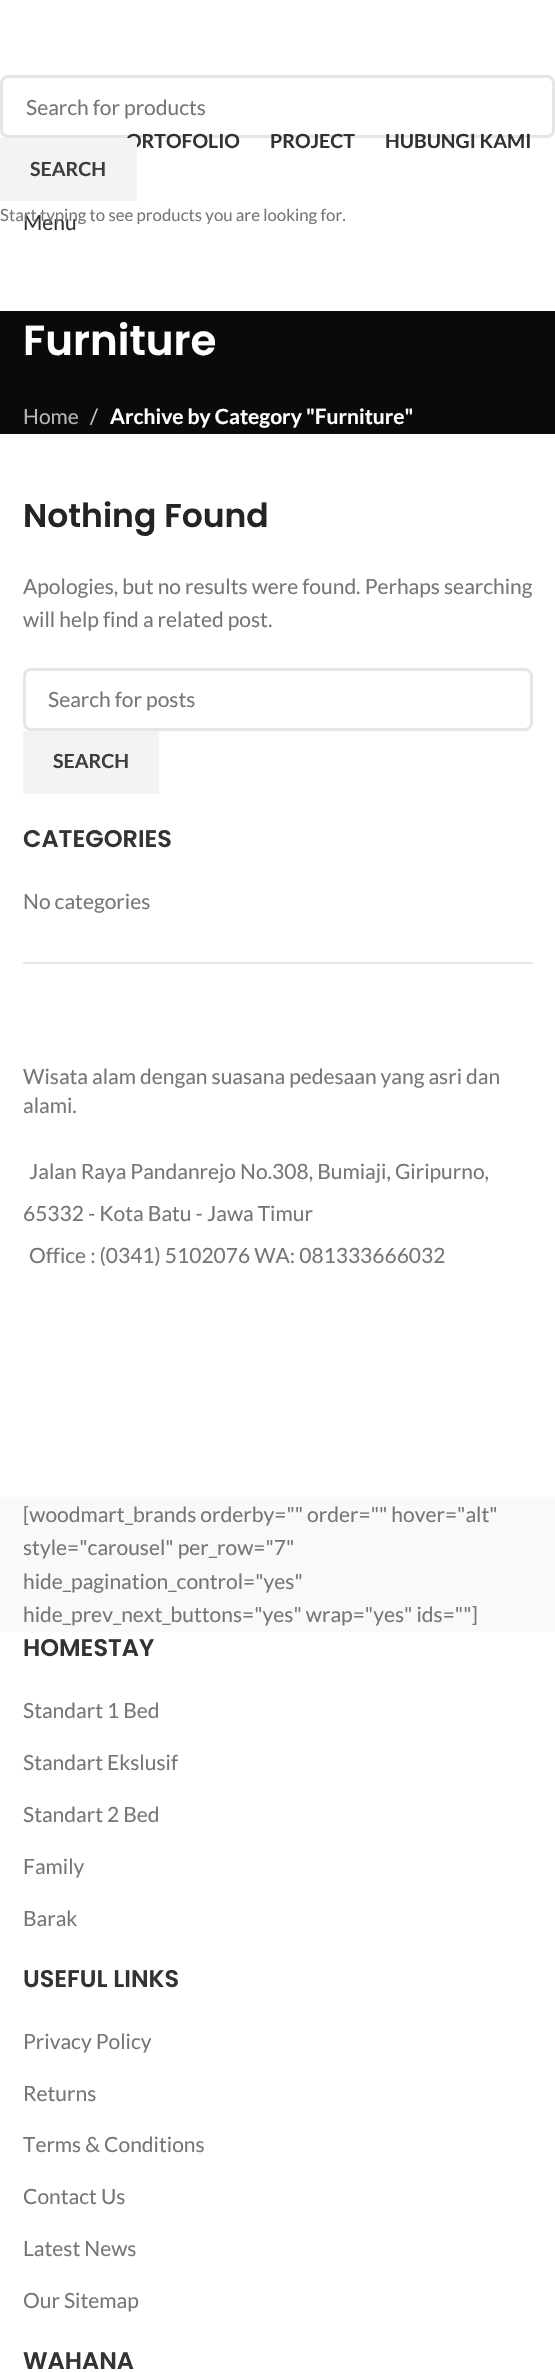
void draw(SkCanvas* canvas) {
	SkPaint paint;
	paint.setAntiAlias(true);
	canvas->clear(0xffffffff);
	SkFont f1(fontMgr->matchFamilyStyle("Lato", SkFontStyle::Bold()), 19.5);
	f1.setSubpixel(true);
	paint.setColor(0xff333333);
	canvas->drawString("ORTOFOLIO", 126, 148, f1, paint);
	canvas->drawString("PROJECT", 270, 148, f1, paint);
	canvas->drawString("HUBUNGI KAMI", 385, 148, f1, paint);
	paint.setStroke(true);
	paint.setStrokeWidth(3);
	paint.setColor(0x1a000000);
	canvas->drawRoundRect(SkRect::MakeXYWH(1.5, 76.5, 552, 60), 6.5, 6.5, paint);
	SkFont f2(fontMgr->matchFamilyStyle("Lato", SkFontStyle::Normal()), 21);
	f2.setSubpixel(true);
	paint.setStroke(false);
	paint.setColor(0xff767676);
	canvas->drawString("Search for products", 26, 115, f2, paint);
	paint.setColor(0xfff3f3f3);
	canvas->drawRect(SkRect::MakeXYWH(0, 138, 137, 63), paint);
	paint.setColor(0xff3e3e3e);
	canvas->drawString("SEARCH", 30, 176, f1, paint);
	paint.setColor(0xff333333);
	canvas->drawString("Menu", 23, 230, f2, paint);
	SkFont f3(fontMgr->matchFamilyStyle("Lato", SkFontStyle::Normal()), 16.8);
	f3.setSubpixel(true);
	paint.setColor(0xff767676);
	canvas->drawString("Start typing to see products you are looking for.", 0, 221, f3, paint);
	paint.setColor(0xff0a0a0a);
	canvas->drawRect(SkRect::MakeXYWH(0, 311, 555, 123), paint);
	SkFont f4(fontMgr->matchFamilyStyle("Poppins", SkFontStyle(600, SkFontStyle::kNormal_Width, SkFontStyle::kUpright_Slant)), 42);
	f4.setSubpixel(true);
	paint.setColor(0xffffffff);
	canvas->drawString("Furniture", 23, 355, f4, paint);
	paint.setColor(0xffb6b6b6);
	canvas->drawString("Home", 23, 424, f2, paint);
	paint.setColor(0xffcecece);
	canvas->drawString("/", 90, 424, f2, paint);
	SkFont f5(fontMgr->matchFamilyStyle("Lato", SkFontStyle::Bold()), 21);
	f5.setSubpixel(true);
	paint.setColor(0xffffffff);
	canvas->drawString("Archive by Category \"Furniture\"", 110, 424, f5, paint);
	SkFont f6(fontMgr->matchFamilyStyle("Poppins", SkFontStyle(600, SkFontStyle::kNormal_Width, SkFontStyle::kUpright_Slant)), 33);
	f6.setSubpixel(true);
	paint.setColor(0xff242424);
	canvas->drawString("Nothing Found", 23, 527, f6, paint);
	paint.setColor(0xff767676);
	canvas->drawString("Apologies, but no results were found. Perhaps searching", 23, 594, f2, paint);
	canvas->drawString("will help find a related post.", 23, 627, f2, paint);
	paint.setStroke(true);
	paint.setColor(0xffe6e6e6);
	canvas->drawRoundRect(SkRect::MakeXYWH(24.5, 669.5, 507, 60), 6.5, 6.5, paint);
	paint.setStroke(false);
	paint.setColor(0xff767676);
	canvas->drawString("Search for posts", 48, 707, f2, paint);
	paint.setColor(0xfff3f3f3);
	canvas->drawRect(SkRect::MakeXYWH(23, 731, 136, 63), paint);
	paint.setColor(0xff3e3e3e);
	canvas->drawString("SEARCH", 53, 768, f1, paint);
	paint.setColor(0xffe4e4e4);
	canvas->drawRect(SkRect::MakeXYWH(23, 962, 510, 2), paint);
	SkFont f7(fontMgr->matchFamilyStyle("Poppins", SkFontStyle(600, SkFontStyle::kNormal_Width, SkFontStyle::kUpright_Slant)), 24);
	f7.setSubpixel(true);
	paint.setColor(0xff333333);
	canvas->drawString("CATEGORIES", 23, 847, f7, paint);
	paint.setColor(0xff767676);
	canvas->drawString("No categories", 23, 909, f2, paint);
	canvas->drawString("Wisata alam dengan suasana pedesaan yang asri dan", 23, 1084, f2, paint);
	canvas->drawString("alami.", 23, 1113, f2, paint);
	canvas->drawString("Jalan Raya Pandanrejo No.308, Bumiaji, Giripurno,", 29, 1179, f2, paint);
	canvas->drawString("65332 - Kota Batu - Jawa Timur", 23, 1221, f2, paint);
	canvas->drawString("Office : (0341) 5102076 WA: 081333666032", 29, 1263, f2, paint);
	paint.setColor(0xfff9f9f9);
	canvas->drawRect(SkRect::MakeXYWH(0, 1497, 555, 135), paint);
	paint.setColor(0xff767676);
	canvas->drawString("[woodmart_brands orderby=\"\" order=\"\" hover=\"alt\"", 23, 1522, f2, paint);
	canvas->drawString("style=\"carousel\" per_row=\"7\"", 23, 1555, f2, paint);
	canvas->drawString("hide_pagination_control=\"yes\"", 23, 1589, f2, paint);
	canvas->drawString("hide_prev_next_buttons=\"yes\" wrap=\"yes\" ids=\"\"]", 23, 1622, f2, paint);
	paint.setColor(0xff333333);
	canvas->drawString("HOMESTAY", 23, 1656, f7, paint);
	paint.setColor(0xff767676);
	canvas->drawString("Standart 1 Bed", 23, 1718, f2, paint);
	canvas->drawString("Standart Ekslusif", 23, 1770, f2, paint);
	canvas->drawString("Standart 2 Bed", 23, 1822, f2, paint);
	canvas->drawString("Family", 23, 1874, f2, paint);
	canvas->drawString("Barak", 23, 1926, f2, paint);
	paint.setColor(0xff333333);
	canvas->drawString("USEFUL LINKS", 23, 1987, f7, paint);
	paint.setColor(0xff767676);
	canvas->drawString("Privacy Policy", 23, 2049, f2, paint);
	canvas->drawString("Returns", 23, 2101, f2, paint);
	canvas->drawString("Terms & Conditions", 23, 2152, f2, paint);
	canvas->drawString("Contact Us", 23, 2204, f2, paint);
	canvas->drawString("Latest News", 23, 2256, f2, paint);
	canvas->drawString("Our Sitemap", 23, 2308, f2, paint);
	paint.setColor(0xff333333);
	canvas->drawString("WAHANA", 23, 2369, f7, paint);
}
